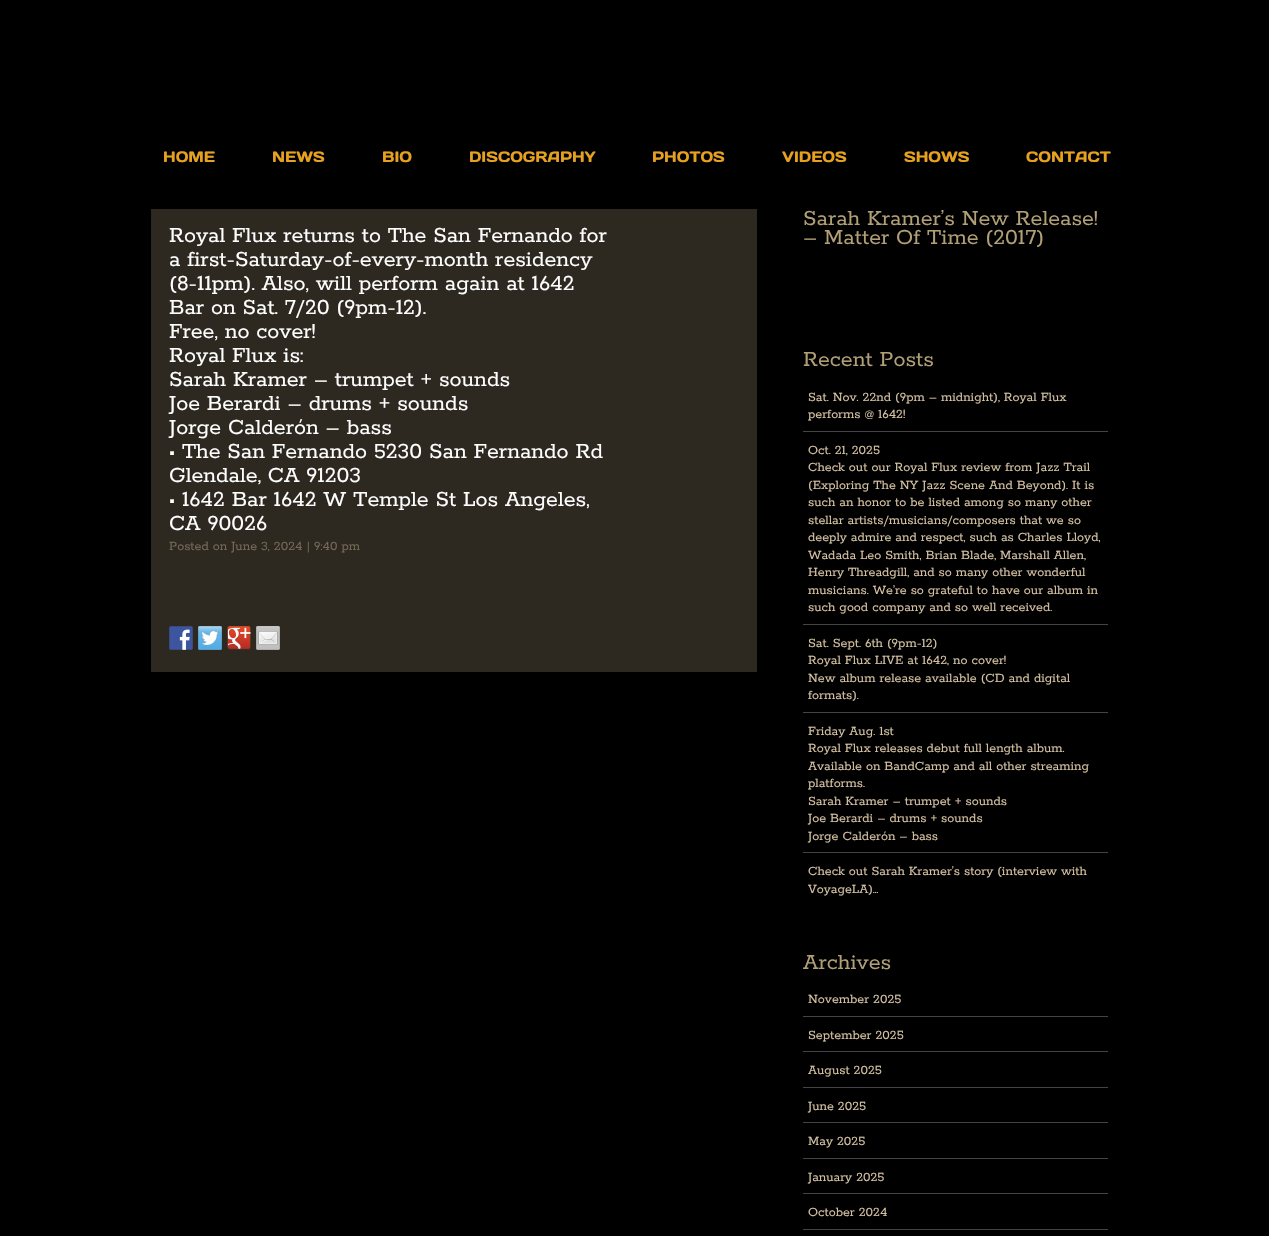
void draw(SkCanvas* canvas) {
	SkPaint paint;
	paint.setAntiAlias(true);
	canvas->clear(0xff000000);
	SkFont f1(fontMgr->matchFamilyStyle("Days One", SkFontStyle::Normal()), 15);
	f1.setSubpixel(true);
	paint.setColor(0xffe5a11f);
	canvas->drawString("HOME", 163, 162, f1, paint);
	canvas->drawString("NEWS", 272, 162, f1, paint);
	canvas->drawString("BIO", 382, 162, f1, paint);
	canvas->drawString("DISCOGRAPHY", 469, 162, f1, paint);
	canvas->drawString("PHOTOS", 652, 162, f1, paint);
	canvas->drawString("VIDEOS", 782, 162, f1, paint);
	canvas->drawString("SHOWS", 904, 162, f1, paint);
	canvas->drawString("CONTACT", 1026, 162, f1, paint);
	paint.setColor(0xff2d2820);
	canvas->drawRect(SkRect::MakeXYWH(151, 209, 606, 463), paint);
	SkFont f2(fontMgr->matchFamilyStyle("Rokkitt", SkFontStyle::Normal()), 24);
	f2.setSubpixel(true);
	paint.setColor(0xffffffff);
	canvas->drawString("Royal Flux returns to The San Fernando for", 169, 242, f2, paint);
	canvas->drawString("a first-Saturday-of-every-month residency", 169, 266, f2, paint);
	canvas->drawString("(8-11pm). Also, will perform again at 1642", 169, 290, f2, paint);
	canvas->drawString("Bar on Sat. 7/20 (9pm-12).", 169, 314, f2, paint);
	canvas->drawString("Free, no cover!", 169, 338, f2, paint);
	canvas->drawString("Royal Flux is:", 169, 362, f2, paint);
	canvas->drawString("Sarah Kramer – trumpet + sounds", 169, 386, f2, paint);
	canvas->drawString("Joe Berardi – drums + sounds", 169, 410, f2, paint);
	canvas->drawString("Jorge Calderón – bass", 169, 434, f2, paint);
	canvas->drawString("• The San Fernando 5230 San Fernando Rd", 169, 458, f2, paint);
	canvas->drawString("Glendale, CA 91203", 169, 482, f2, paint);
	canvas->drawString("• 1642 Bar 1642 W Temple St Los Angeles,", 169, 506, f2, paint);
	canvas->drawString("CA 90026", 169, 530, f2, paint);
	SkFont f3(fontMgr->matchFamilyStyle("Rokkitt", SkFontStyle::Normal()), 14);
	f3.setSubpixel(true);
	paint.setColor(0xff746957);
	canvas->drawString("Posted on June 3, 2024 | 9:40 pm", 169, 550, f3, paint);
	canvas->drawImageRect(SkImages::DeferredFromEncodedData(SkData::MakeFromFileName("img1.png")), SkRect::MakeXYWH(169, 626, 24, 24), SkSamplingOptions());
	canvas->drawImageRect(SkImages::DeferredFromEncodedData(SkData::MakeFromFileName("img2.png")), SkRect::MakeXYWH(198, 626, 24, 24), SkSamplingOptions());
	canvas->drawImageRect(SkImages::DeferredFromEncodedData(SkData::MakeFromFileName("img3.png")), SkRect::MakeXYWH(227, 626, 24, 24), SkSamplingOptions());
	canvas->drawImageRect(SkImages::DeferredFromEncodedData(SkData::MakeFromFileName("img4.png")), SkRect::MakeXYWH(256, 626, 24, 24), SkSamplingOptions());
	paint.setColor(0xffb19f75);
	canvas->drawString("Sarah Kramer’s New Release!", 803, 225, f2, paint);
	canvas->drawString("– Matter Of Time (2017)", 803, 244, f2, paint);
	canvas->drawString("Recent Posts", 803, 366, f2, paint);
	paint.setColor(0xff444444);
	canvas->drawRect(SkRect::MakeXYWH(803, 431, 305, 1), paint);
	paint.setColor(0xffd4c1a2);
	canvas->drawString("Sat. Nov. 22nd (9pm – midnight), Royal Flux", 808, 401, f3, paint);
	canvas->drawString("performs @ 1642!", 808, 418, f3, paint);
	paint.setColor(0xff444444);
	canvas->drawRect(SkRect::MakeXYWH(803, 624, 305, 1), paint);
	paint.setColor(0xffd4c1a2);
	canvas->drawString("Oct. 21, 2025", 808, 454, f3, paint);
	canvas->drawString("Check out our Royal Flux review from Jazz Trail", 808, 471, f3, paint);
	canvas->drawString("(Exploring The NY Jazz Scene And Beyond). It is", 808, 489, f3, paint);
	canvas->drawString("such an honor to be listed among so many other", 808, 506, f3, paint);
	canvas->drawString("stellar artists/musicians/composers that we so", 808, 524, f3, paint);
	canvas->drawString("deeply admire and respect, such as Charles Lloyd,", 808, 541, f3, paint);
	canvas->drawString("Wadada Leo Smith, Brian Blade, Marshall Allen,", 808, 559, f3, paint);
	canvas->drawString("Henry Threadgill, and so many other wonderful", 808, 576, f3, paint);
	canvas->drawString("musicians. We’re so grateful to have our album in", 808, 594, f3, paint);
	canvas->drawString("such good company and so well received.", 808, 611, f3, paint);
	paint.setColor(0xff444444);
	canvas->drawRect(SkRect::MakeXYWH(803, 712, 305, 1), paint);
	paint.setColor(0xffd4c1a2);
	canvas->drawString("Sat. Sept. 6th (9pm-12)", 808, 647, f3, paint);
	canvas->drawString("Royal Flux LIVE at 1642, no cover!", 808, 664, f3, paint);
	canvas->drawString("New album release available (CD and digital", 808, 682, f3, paint);
	canvas->drawString("formats).", 808, 699, f3, paint);
	paint.setColor(0xff444444);
	canvas->drawRect(SkRect::MakeXYWH(803, 852, 305, 1), paint);
	paint.setColor(0xffd4c1a2);
	canvas->drawString("Friday Aug. 1st", 808, 735, f3, paint);
	canvas->drawString("Royal Flux releases debut full length album.", 808, 752, f3, paint);
	canvas->drawString("Available on BandCamp and all other streaming", 808, 770, f3, paint);
	canvas->drawString("platforms.", 808, 787, f3, paint);
	canvas->drawString("Sarah Kramer – trumpet + sounds", 808, 805, f3, paint);
	canvas->drawString("Joe Berardi – drums + sounds", 808, 822, f3, paint);
	canvas->drawString("Jorge Calderón – bass", 808, 840, f3, paint);
	canvas->drawString("Check out Sarah Kramer’s story (interview with", 808, 875, f3, paint);
	canvas->drawString("VoyageLA)…", 808, 893, f3, paint);
	paint.setColor(0xffb19f75);
	canvas->drawString("Archives", 803, 969, f2, paint);
	paint.setColor(0xff444444);
	canvas->drawRect(SkRect::MakeXYWH(803, 1016, 305, 1), paint);
	paint.setColor(0xffd4c1a2);
	canvas->drawString("November 2025", 808, 1003, f3, paint);
	paint.setColor(0xff444444);
	canvas->drawRect(SkRect::MakeXYWH(803, 1051, 305, 1), paint);
	paint.setColor(0xffd4c1a2);
	canvas->drawString("September 2025", 808, 1039, f3, paint);
	paint.setColor(0xff444444);
	canvas->drawRect(SkRect::MakeXYWH(803, 1087, 305, 1), paint);
	paint.setColor(0xffd4c1a2);
	canvas->drawString("August 2025", 808, 1074, f3, paint);
	paint.setColor(0xff444444);
	canvas->drawRect(SkRect::MakeXYWH(803, 1122, 305, 1), paint);
	paint.setColor(0xffd4c1a2);
	canvas->drawString("June 2025", 808, 1110, f3, paint);
	paint.setColor(0xff444444);
	canvas->drawRect(SkRect::MakeXYWH(803, 1158, 305, 1), paint);
	paint.setColor(0xffd4c1a2);
	canvas->drawString("May 2025", 808, 1145, f3, paint);
	paint.setColor(0xff444444);
	canvas->drawRect(SkRect::MakeXYWH(803, 1193, 305, 1), paint);
	paint.setColor(0xffd4c1a2);
	canvas->drawString("January 2025", 808, 1181, f3, paint);
	paint.setColor(0xff444444);
	canvas->drawRect(SkRect::MakeXYWH(803, 1229, 305, 1), paint);
	paint.setColor(0xffd4c1a2);
	canvas->drawString("October 2024", 808, 1216, f3, paint);
}
